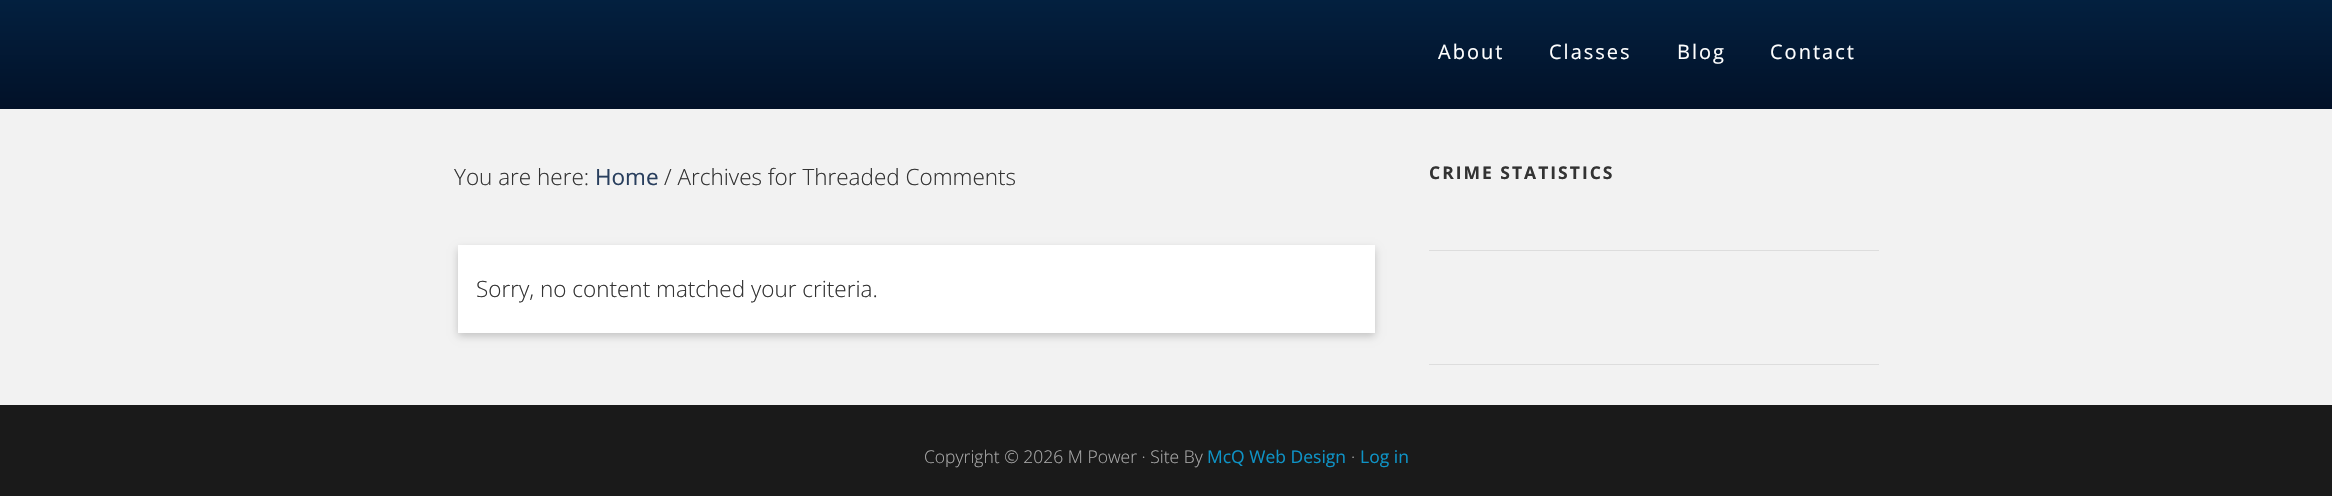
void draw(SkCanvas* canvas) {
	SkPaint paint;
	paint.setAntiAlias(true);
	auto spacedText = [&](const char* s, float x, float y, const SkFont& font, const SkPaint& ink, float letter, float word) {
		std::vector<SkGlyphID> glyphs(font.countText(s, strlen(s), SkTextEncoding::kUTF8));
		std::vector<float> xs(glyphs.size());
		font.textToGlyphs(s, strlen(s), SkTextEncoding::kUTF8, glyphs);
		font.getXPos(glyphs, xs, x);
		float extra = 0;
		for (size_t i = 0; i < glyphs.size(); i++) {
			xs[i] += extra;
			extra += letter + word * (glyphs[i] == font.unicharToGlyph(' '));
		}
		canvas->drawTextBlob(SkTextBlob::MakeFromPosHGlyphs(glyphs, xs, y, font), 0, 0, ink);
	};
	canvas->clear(0xfff2f2f2);
	{
		const SkColor colors[] = {0xff03203f, 0xff021128};
		const float stops[] = {0, 1};
		const SkPoint ends[] = {{1166, 0}, {1166, 109}};
		paint.setShader(SkGradientShader::MakeLinear(ends, colors, stops, 2, SkTileMode::kClamp));
		paint.setAlpha(255);
	}
	canvas->drawRect(SkRect::MakeXYWH(0, 0, 2332, 109), paint);
	SkFont f1(fontMgr->matchFamilyStyle("Open Sans", SkFontStyle::Normal()), 20);
	f1.setSubpixel(true);
	paint.setShader(nullptr);
	paint.setColor(0xffffffff);
	spacedText("About", 1438, 59, f1, paint, 2, 0);
	spacedText("Classes", 1549, 59, f1, paint, 2, 0);
	spacedText("Blog", 1677, 59, f1, paint, 2, 0);
	spacedText("Contact", 1770, 59, f1, paint, 2, 0);
	SkFont f2(fontMgr->matchFamilyStyle("Open Sans", SkFontStyle(300, SkFontStyle::kNormal_Width, SkFontStyle::kUpright_Slant)), 22.5);
	f2.setSubpixel(true);
	paint.setColor(0xff333333);
	canvas->drawString("You are here:", 454, 185, f2, paint);
	SkFont f3(fontMgr->matchFamilyStyle("Open Sans", SkFontStyle::Normal()), 22.5);
	f3.setSubpixel(true);
	paint.setColor(0xff293f5e);
	canvas->drawString("Home", 595, 185, f3, paint);
	paint.setColor(0xff333333);
	canvas->drawString("/ Archives for Threaded Comments", 664, 185, f2, paint);
	paint.setColor(0x33000000);
	paint.setMaskFilter(SkMaskFilter::MakeBlur(kNormal_SkBlurStyle, 4));
	canvas->drawRect(SkRect::MakeXYWH(458, 249, 917, 87), paint);
	paint.setMaskFilter(nullptr);
	paint.setColor(0xffffffff);
	canvas->drawRect(SkRect::MakeXYWH(458, 245, 917, 88), paint);
	paint.setColor(0xff333333);
	canvas->drawString("Sorry, no content matched your criteria.", 476, 297, f2, paint);
	paint.setColor(0xffdddddd);
	canvas->drawRect(SkRect::MakeXYWH(1429, 250, 450, 1), paint);
	SkFont f4(fontMgr->matchFamilyStyle("Open Sans", SkFontStyle::Bold()), 17.5);
	f4.setSubpixel(true);
	paint.setColor(0xff333333);
	spacedText("CRIME STATISTICS", 1429, 179, f4, paint, 2, 0);
	paint.setColor(0xffdddddd);
	canvas->drawRect(SkRect::MakeXYWH(1429, 364, 450, 1), paint);
	paint.setColor(0xff1a1a1a);
	canvas->drawRect(SkRect::MakeXYWH(0, 405, 2332, 91), paint);
	SkFont f5(fontMgr->matchFamilyStyle("Open Sans", SkFontStyle(300, SkFontStyle::kNormal_Width, SkFontStyle::kUpright_Slant)), 17.5);
	f5.setSubpixel(true);
	paint.setColor(0xffaaaaaa);
	canvas->drawString("Copyright © 2026 M Power · Site By", 924, 463, f5, paint);
	SkFont f6(fontMgr->matchFamilyStyle("Open Sans", SkFontStyle::Normal()), 17.5);
	f6.setSubpixel(true);
	paint.setColor(0xff0e93c6);
	canvas->drawString("McQ Web Design", 1207, 463, f6, paint);
	paint.setColor(0xffaaaaaa);
	canvas->drawString("·", 1351, 463, f5, paint);
	paint.setColor(0xff0e93c6);
	canvas->drawString("Log in", 1360, 463, f6, paint);
}
